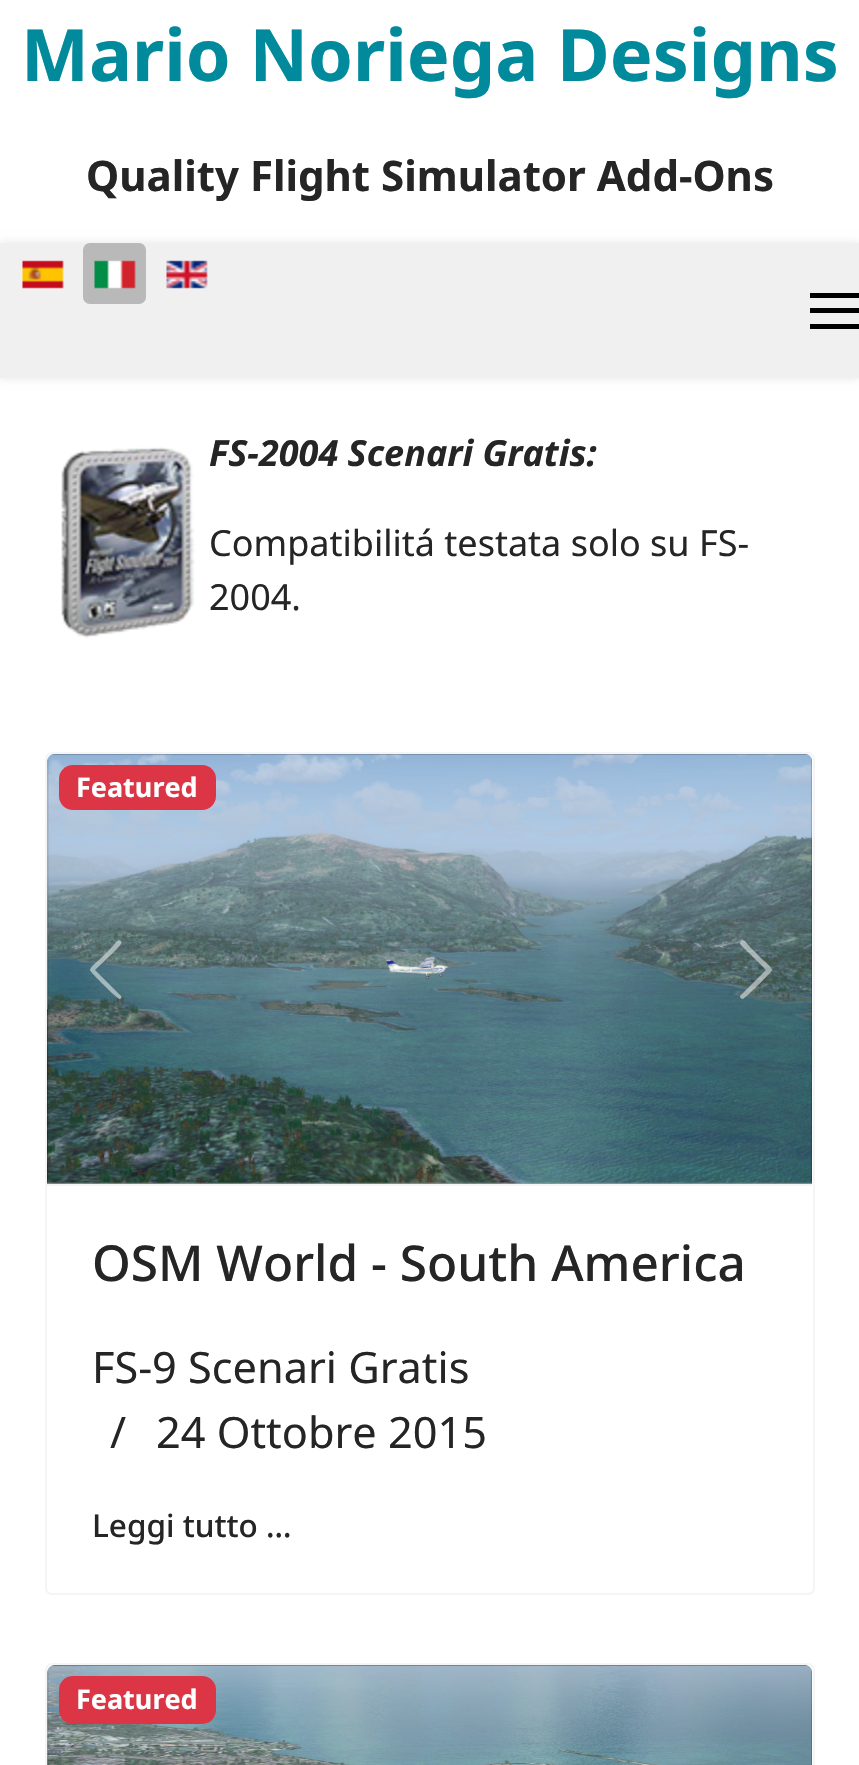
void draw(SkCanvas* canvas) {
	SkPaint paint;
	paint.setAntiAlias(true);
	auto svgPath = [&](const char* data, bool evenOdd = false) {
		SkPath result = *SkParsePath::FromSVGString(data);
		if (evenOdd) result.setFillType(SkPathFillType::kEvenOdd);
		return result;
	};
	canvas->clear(0xffffffff);
	SkFont f1(fontMgr->matchFamilyStyle("Noto Sans", SkFontStyle::Bold()), 72);
	f1.setSubpixel(true);
	paint.setColor(0xff008a9c);
	canvas->drawString("Mario Noriega Designs", 21, 81, f1, paint);
	SkFont f2(fontMgr->matchFamilyStyle("Noto Sans", SkFontStyle::Bold()), 42);
	f2.setSubpixel(true);
	paint.setColor(0xff252525);
	canvas->drawString("Quality Flight Simulator Add-Ons", 86, 191, f2, paint);
	paint.setColor(0x1a000000);
	paint.setMaskFilter(SkMaskFilter::MakeBlur(kNormal_SkBlurStyle, 4.5));
	canvas->drawRect(SkRect::MakeXYWH(0, 243, 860, 135), paint);
	paint.setMaskFilter(nullptr);
	paint.setColor(0xfff0f0f0);
	canvas->drawRect(SkRect::MakeXYWH(0, 243, 859, 135), paint);
	canvas->drawImageRect(SkImages::DeferredFromEncodedData(SkData::MakeFromFileName("img1.png")), SkRect::MakeXYWH(22, 260, 42, 29), SkSamplingOptions());
	paint.setColor(0xffb9b9b9);
	canvas->drawRoundRect(SkRect::MakeXYWH(83, 243, 63, 61), 7, 7, paint);
	canvas->drawImageRect(SkImages::DeferredFromEncodedData(SkData::MakeFromFileName("img2.png")), SkRect::MakeXYWH(94, 260, 42, 29), SkSamplingOptions());
	canvas->drawImageRect(SkImages::DeferredFromEncodedData(SkData::MakeFromFileName("img3.png")), SkRect::MakeXYWH(166, 260, 42, 29), SkSamplingOptions());
	paint.setColor(0xff000000);
	canvas->drawRect(SkRect::MakeXYWH(810, 293, 49, 5), paint);
	canvas->drawRect(SkRect::MakeXYWH(810, 308, 49, 5), paint);
	canvas->drawRect(SkRect::MakeXYWH(810, 324, 49, 5), paint);
	canvas->drawImageRect(SkImages::DeferredFromEncodedData(SkData::MakeFromFileName("img4.png")), SkRect::MakeXYWH(61, 447, 134, 191), SkSamplingOptions());
	SkFont f3(fontMgr->matchFamilyStyle("Noto Sans", SkFontStyle::BoldItalic()), 36);
	f3.setSubpixel(true);
	paint.setColor(0xff252525);
	canvas->drawString("FS-2004 Scenari Gratis:", 209, 466, f3, paint);
	SkFont f4(fontMgr->matchFamilyStyle("Noto Sans", SkFontStyle::Normal()), 36);
	f4.setSubpixel(true);
	canvas->drawString("Compatibilitá testata solo su FS-", 209, 556, f4, paint);
	canvas->drawString("2004.", 209, 610, f4, paint);
	paint.setStroke(true);
	paint.setStrokeWidth(2);
	paint.setColor(0xfff5f5f5);
	canvas->drawRoundRect(SkRect::MakeXYWH(46, 753, 768, 841), 6, 6, paint);
	paint.setStroke(false);
	canvas->drawRect(SkRect::MakeXYWH(47, 1184, 765, 2), paint);
	canvas->drawImageRect(SkImages::DeferredFromEncodedData(SkData::MakeFromFileName("img5.png")), SkRect::MakeXYWH(47, 754, 765, 430), SkSamplingOptions());
	paint.setColor(0x80ffffff);
	canvas->drawPath(svgPath("M121 941C123 944 117 948 117 949L95 970L121 996C122 998 121 999 119 999L113 994C110 991 90 972 90 970C90 967 98 961 100 959L113 946C114 945 118 938 121 941Z"), paint);
	canvas->drawPath(svgPath("M741 941C744 938 748 945 749 946L762 959C764 961 772 967 772 970C772 972 752 991 749 994L743 999C741 999 740 998 740 996L766 970L745 949C744 948 738 944 741 941Z"), paint);
	paint.setColor(0xffdc3545);
	canvas->drawRoundRect(SkRect::MakeXYWH(59, 765, 157, 45), 14, 14, paint);
	SkFont f5(fontMgr->matchFamilyStyle("Noto Sans", SkFontStyle::Bold()), 27);
	f5.setSubpixel(true);
	paint.setColor(0xffffffff);
	canvas->drawString("Featured", 76, 797, f5, paint);
	SkFont f6(fontMgr->matchFamilyStyle("Noto Sans", SkFontStyle(500, SkFontStyle::kNormal_Width, SkFontStyle::kUpright_Slant)), 49.5);
	f6.setSubpixel(true);
	paint.setColor(0xff252525);
	canvas->drawString("OSM World - South America", 92, 1281, f6, paint);
	SkFont f7(fontMgr->matchFamilyStyle("Noto Sans", SkFontStyle::Normal()), 43.25);
	f7.setSubpixel(true);
	canvas->drawString("FS-9 Scenari Gratis", 92, 1383, f7, paint);
	canvas->drawString("/", 110, 1448, f7, paint);
	canvas->drawString("24 Ottobre 2015", 156, 1448, f7, paint);
	SkFont f8(fontMgr->matchFamilyStyle("Noto Sans", SkFontStyle(500, SkFontStyle::kNormal_Width, SkFontStyle::kUpright_Slant)), 31.5);
	f8.setSubpixel(true);
	canvas->drawString("Leggi tutto …", 92, 1537, f8, paint);
	paint.setStroke(true);
	paint.setColor(0xfff5f5f5);
	canvas->drawRoundRect(SkRect::MakeXYWH(46, 1664, 768, 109), 6, 6, paint);
	canvas->drawImageRect(SkImages::DeferredFromEncodedData(SkData::MakeFromFileName("img6.png")), SkRect::MakeXYWH(47, 1665, 765, 100), SkSamplingOptions());
	paint.setStroke(false);
	paint.setColor(0xffdc3545);
	canvas->drawRoundRect(SkRect::MakeXYWH(59, 1676, 157, 48), 14, 14, paint);
	paint.setColor(0xffffffff);
	canvas->drawString("Featured", 76, 1709, f5, paint);
}
